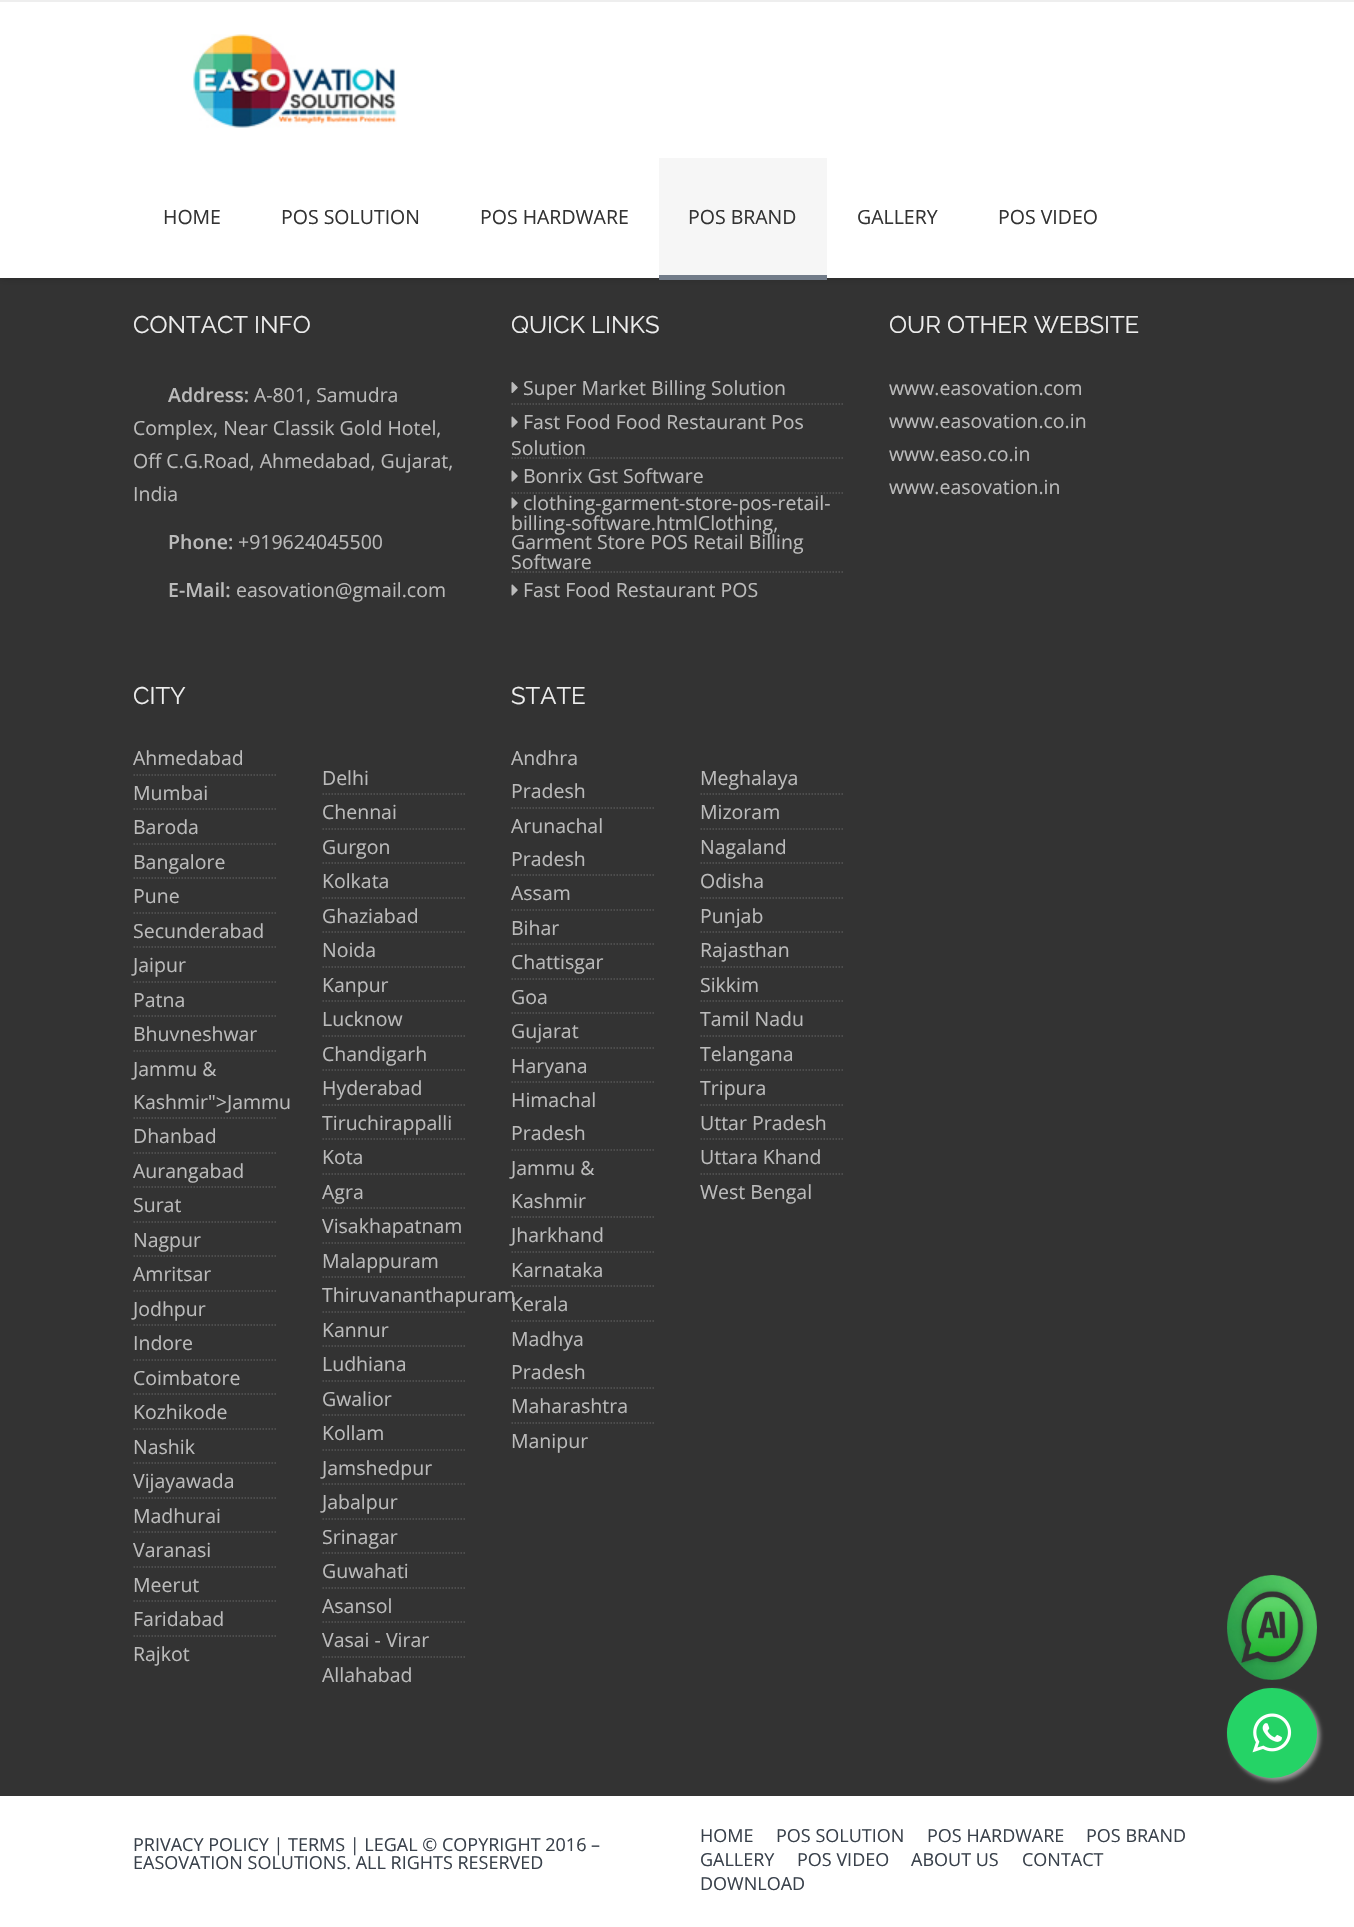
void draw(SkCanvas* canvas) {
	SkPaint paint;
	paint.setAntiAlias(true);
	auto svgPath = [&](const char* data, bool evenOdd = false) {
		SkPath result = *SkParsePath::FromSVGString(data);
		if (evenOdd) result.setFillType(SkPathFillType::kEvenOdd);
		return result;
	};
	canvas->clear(0xff333333);
	paint.setColor(0x33000000);
	paint.setMaskFilter(SkMaskFilter::MakeBlur(kNormal_SkBlurStyle, 4));
	canvas->drawRect(SkRect::MakeXYWH(0, 0, 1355, 278), paint);
	paint.setMaskFilter(nullptr);
	paint.setColor(0xffffffff);
	canvas->drawRect(SkRect::MakeXYWH(0, 2, 1354, 276), paint);
	paint.setColor(0xffeeeeee);
	canvas->drawRect(SkRect::MakeXYWH(0, 0, 1354, 2), paint);
	canvas->drawImageRect(SkImages::DeferredFromEncodedData(SkData::MakeFromFileName("img1.png")), SkRect::MakeXYWH(193, 34, 204, 94), SkSamplingOptions());
	SkFont f1(fontMgr->matchFamilyStyle("Open Sans", SkFontStyle::Normal()), 19.5);
	f1.setSubpixel(true);
	paint.setColor(0xff333333);
	canvas->drawString("HOME", 163, 224, f1, paint);
	canvas->drawString("POS SOLUTION", 281, 224, f1, paint);
	canvas->drawString("POS HARDWARE", 480, 224, f1, paint);
	paint.setColor(0xfff6f6f6);
	canvas->drawRect(SkRect::MakeXYWH(659, 158, 168, 117), paint);
	paint.setColor(0xff727c89);
	canvas->drawRect(SkRect::MakeXYWH(659, 275, 168, 5), paint);
	paint.setColor(0xff333333);
	canvas->drawString("POS BRAND", 688, 224, f1, paint);
	canvas->drawString("GALLERY", 857, 224, f1, paint);
	canvas->drawString("POS VIDEO", 998, 224, f1, paint);
	SkFont f2(fontMgr->matchFamilyStyle("Raleway", SkFontStyle(100, SkFontStyle::kNormal_Width, SkFontStyle::kUpright_Slant)), 24);
	f2.setSubpixel(true);
	paint.setColor(0xffeeeeee);
	canvas->drawString("CONTACT INFO", 133, 333, f2, paint);
	SkFont f3(fontMgr->matchFamilyStyle("Open Sans", SkFontStyle(600, SkFontStyle::kNormal_Width, SkFontStyle::kUpright_Slant)), 19.5);
	f3.setSubpixel(true);
	paint.setColor(0xffbbbbbb);
	canvas->drawString("Address:", 168, 402, f3, paint);
	canvas->drawString("A-801, Samudra", 254, 402, f1, paint);
	canvas->drawString("Complex, Near Classik Gold Hotel,", 133, 435, f1, paint);
	canvas->drawString("Off C.G.Road, Ahmedabad, Gujarat,", 133, 468, f1, paint);
	canvas->drawString("India", 133, 501, f1, paint);
	canvas->drawString("Phone:", 168, 549, f3, paint);
	canvas->drawString("+919624045500", 238, 549, f1, paint);
	canvas->drawString("E-Mail:", 168, 597, f3, paint);
	canvas->drawString("easovation@gmail.com", 236, 597, f1, paint);
	paint.setColor(0xffeeeeee);
	canvas->drawString("CITY", 133, 704, f2, paint);
	paint.setStroke(true);
	paint.setStrokeWidth(1.5);
	paint.setColor(0xff555555);
	paint.setPathEffect(SkDashPathEffect::Make({{1.5f, 1.5f}}, 0));
	canvas->drawPath(svgPath("M133.5 775H277.5"), paint);
	paint.setPathEffect(nullptr);
	paint.setStroke(false);
	paint.setColor(0xffbbbbbb);
	canvas->drawString("Ahmedabad", 133, 765, f1, paint);
	paint.setStroke(true);
	paint.setColor(0xff555555);
	paint.setPathEffect(SkDashPathEffect::Make({{1.5f, 1.5f}}, 0));
	canvas->drawPath(svgPath("M133.5 809H277.5"), paint);
	paint.setPathEffect(nullptr);
	paint.setStroke(false);
	paint.setColor(0xffbbbbbb);
	canvas->drawString("Mumbai", 133, 800, f1, paint);
	paint.setStroke(true);
	paint.setColor(0xff555555);
	paint.setPathEffect(SkDashPathEffect::Make({{1.5f, 1.5f}}, 0));
	canvas->drawPath(svgPath("M133.5 844H277.5"), paint);
	paint.setPathEffect(nullptr);
	paint.setStroke(false);
	paint.setColor(0xffbbbbbb);
	canvas->drawString("Baroda", 133, 834, f1, paint);
	paint.setStroke(true);
	paint.setColor(0xff555555);
	paint.setPathEffect(SkDashPathEffect::Make({{1.5f, 1.5f}}, 0));
	canvas->drawPath(svgPath("M133.5 878H277.5"), paint);
	paint.setPathEffect(nullptr);
	paint.setStroke(false);
	paint.setColor(0xffbbbbbb);
	canvas->drawString("Bangalore", 133, 869, f1, paint);
	paint.setStroke(true);
	paint.setColor(0xff555555);
	paint.setPathEffect(SkDashPathEffect::Make({{1.5f, 1.5f}}, 0));
	canvas->drawPath(svgPath("M133.5 913H277.5"), paint);
	paint.setPathEffect(nullptr);
	paint.setStroke(false);
	paint.setColor(0xffbbbbbb);
	canvas->drawString("Pune", 133, 903, f1, paint);
	paint.setStroke(true);
	paint.setColor(0xff555555);
	paint.setPathEffect(SkDashPathEffect::Make({{1.5f, 1.5f}}, 0));
	canvas->drawPath(svgPath("M133.5 947H277.5"), paint);
	paint.setPathEffect(nullptr);
	paint.setStroke(false);
	paint.setColor(0xffbbbbbb);
	canvas->drawString("Secunderabad", 133, 938, f1, paint);
	paint.setStroke(true);
	paint.setColor(0xff555555);
	paint.setPathEffect(SkDashPathEffect::Make({{1.5f, 1.5f}}, 0));
	canvas->drawPath(svgPath("M133.5 982H277.5"), paint);
	paint.setPathEffect(nullptr);
	paint.setStroke(false);
	paint.setColor(0xffbbbbbb);
	canvas->drawString("Jaipur", 133, 972, f1, paint);
	paint.setStroke(true);
	paint.setColor(0xff555555);
	paint.setPathEffect(SkDashPathEffect::Make({{1.5f, 1.5f}}, 0));
	canvas->drawPath(svgPath("M133.5 1016H277.5"), paint);
	paint.setPathEffect(nullptr);
	paint.setStroke(false);
	paint.setColor(0xffbbbbbb);
	canvas->drawString("Patna", 133, 1007, f1, paint);
	paint.setStroke(true);
	paint.setColor(0xff555555);
	paint.setPathEffect(SkDashPathEffect::Make({{1.5f, 1.5f}}, 0));
	canvas->drawPath(svgPath("M133.5 1051H277.5"), paint);
	paint.setPathEffect(nullptr);
	paint.setStroke(false);
	paint.setColor(0xffbbbbbb);
	canvas->drawString("Bhuvneshwar", 133, 1041, f1, paint);
	paint.setStroke(true);
	paint.setColor(0xff555555);
	paint.setPathEffect(SkDashPathEffect::Make({{1.5f, 1.5f}}, 0));
	canvas->drawPath(svgPath("M133.5 1118H277.5"), paint);
	paint.setPathEffect(nullptr);
	paint.setStroke(false);
	paint.setColor(0xffbbbbbb);
	canvas->drawString("Jammu &", 133, 1076, f1, paint);
	canvas->drawString("Kashmir\">Jammu", 133, 1109, f1, paint);
	paint.setStroke(true);
	paint.setColor(0xff555555);
	paint.setPathEffect(SkDashPathEffect::Make({{1.5f, 1.5f}}, 0));
	canvas->drawPath(svgPath("M133.5 1153H277.5"), paint);
	paint.setPathEffect(nullptr);
	paint.setStroke(false);
	paint.setColor(0xffbbbbbb);
	canvas->drawString("Dhanbad", 133, 1143, f1, paint);
	paint.setStroke(true);
	paint.setColor(0xff555555);
	paint.setPathEffect(SkDashPathEffect::Make({{1.5f, 1.5f}}, 0));
	canvas->drawPath(svgPath("M133.5 1187H277.5"), paint);
	paint.setPathEffect(nullptr);
	paint.setStroke(false);
	paint.setColor(0xffbbbbbb);
	canvas->drawString("Aurangabad", 133, 1178, f1, paint);
	paint.setStroke(true);
	paint.setColor(0xff555555);
	paint.setPathEffect(SkDashPathEffect::Make({{1.5f, 1.5f}}, 0));
	canvas->drawPath(svgPath("M133.5 1222H277.5"), paint);
	paint.setPathEffect(nullptr);
	paint.setStroke(false);
	paint.setColor(0xffbbbbbb);
	canvas->drawString("Surat", 133, 1212, f1, paint);
	paint.setStroke(true);
	paint.setColor(0xff555555);
	paint.setPathEffect(SkDashPathEffect::Make({{1.5f, 1.5f}}, 0));
	canvas->drawPath(svgPath("M133.5 1256H277.5"), paint);
	paint.setPathEffect(nullptr);
	paint.setStroke(false);
	paint.setColor(0xffbbbbbb);
	canvas->drawString("Nagpur", 133, 1247, f1, paint);
	paint.setStroke(true);
	paint.setColor(0xff555555);
	paint.setPathEffect(SkDashPathEffect::Make({{1.5f, 1.5f}}, 0));
	canvas->drawPath(svgPath("M133.5 1291H277.5"), paint);
	paint.setPathEffect(nullptr);
	paint.setStroke(false);
	paint.setColor(0xffbbbbbb);
	canvas->drawString("Amritsar", 133, 1281, f1, paint);
	paint.setStroke(true);
	paint.setColor(0xff555555);
	paint.setPathEffect(SkDashPathEffect::Make({{1.5f, 1.5f}}, 0));
	canvas->drawPath(svgPath("M133.5 1325H277.5"), paint);
	paint.setPathEffect(nullptr);
	paint.setStroke(false);
	paint.setColor(0xffbbbbbb);
	canvas->drawString("Jodhpur", 133, 1316, f1, paint);
	paint.setStroke(true);
	paint.setColor(0xff555555);
	paint.setPathEffect(SkDashPathEffect::Make({{1.5f, 1.5f}}, 0));
	canvas->drawPath(svgPath("M133.5 1360H277.5"), paint);
	paint.setPathEffect(nullptr);
	paint.setStroke(false);
	paint.setColor(0xffbbbbbb);
	canvas->drawString("Indore", 133, 1350, f1, paint);
	paint.setStroke(true);
	paint.setColor(0xff555555);
	paint.setPathEffect(SkDashPathEffect::Make({{1.5f, 1.5f}}, 0));
	canvas->drawPath(svgPath("M133.5 1394H277.5"), paint);
	paint.setPathEffect(nullptr);
	paint.setStroke(false);
	paint.setColor(0xffbbbbbb);
	canvas->drawString("Coimbatore", 133, 1385, f1, paint);
	paint.setStroke(true);
	paint.setColor(0xff555555);
	paint.setPathEffect(SkDashPathEffect::Make({{1.5f, 1.5f}}, 0));
	canvas->drawPath(svgPath("M133.5 1429H277.5"), paint);
	paint.setPathEffect(nullptr);
	paint.setStroke(false);
	paint.setColor(0xffbbbbbb);
	canvas->drawString("Kozhikode", 133, 1419, f1, paint);
	paint.setStroke(true);
	paint.setColor(0xff555555);
	paint.setPathEffect(SkDashPathEffect::Make({{1.5f, 1.5f}}, 0));
	canvas->drawPath(svgPath("M133.5 1463H277.5"), paint);
	paint.setPathEffect(nullptr);
	paint.setStroke(false);
	paint.setColor(0xffbbbbbb);
	canvas->drawString("Nashik", 133, 1454, f1, paint);
	paint.setStroke(true);
	paint.setColor(0xff555555);
	paint.setPathEffect(SkDashPathEffect::Make({{1.5f, 1.5f}}, 0));
	canvas->drawPath(svgPath("M133.5 1498H277.5"), paint);
	paint.setPathEffect(nullptr);
	paint.setStroke(false);
	paint.setColor(0xffbbbbbb);
	canvas->drawString("Vijayawada", 133, 1488, f1, paint);
	paint.setStroke(true);
	paint.setColor(0xff555555);
	paint.setPathEffect(SkDashPathEffect::Make({{1.5f, 1.5f}}, 0));
	canvas->drawPath(svgPath("M133.5 1532H277.5"), paint);
	paint.setPathEffect(nullptr);
	paint.setStroke(false);
	paint.setColor(0xffbbbbbb);
	canvas->drawString("Madhurai", 133, 1523, f1, paint);
	paint.setStroke(true);
	paint.setColor(0xff555555);
	paint.setPathEffect(SkDashPathEffect::Make({{1.5f, 1.5f}}, 0));
	canvas->drawPath(svgPath("M133.5 1567H277.5"), paint);
	paint.setPathEffect(nullptr);
	paint.setStroke(false);
	paint.setColor(0xffbbbbbb);
	canvas->drawString("Varanasi", 133, 1557, f1, paint);
	paint.setStroke(true);
	paint.setColor(0xff555555);
	paint.setPathEffect(SkDashPathEffect::Make({{1.5f, 1.5f}}, 0));
	canvas->drawPath(svgPath("M133.5 1601H277.5"), paint);
	paint.setPathEffect(nullptr);
	paint.setStroke(false);
	paint.setColor(0xffbbbbbb);
	canvas->drawString("Meerut", 133, 1592, f1, paint);
	paint.setStroke(true);
	paint.setColor(0xff555555);
	paint.setPathEffect(SkDashPathEffect::Make({{1.5f, 1.5f}}, 0));
	canvas->drawPath(svgPath("M133.5 1636H277.5"), paint);
	paint.setPathEffect(nullptr);
	paint.setStroke(false);
	paint.setColor(0xffbbbbbb);
	canvas->drawString("Faridabad", 133, 1626, f1, paint);
	canvas->drawString("Rajkot", 133, 1661, f1, paint);
	paint.setStroke(true);
	paint.setColor(0xff555555);
	paint.setPathEffect(SkDashPathEffect::Make({{1.5f, 1.5f}}, 0));
	canvas->drawPath(svgPath("M322.5 794H466.5"), paint);
	paint.setPathEffect(nullptr);
	paint.setStroke(false);
	paint.setColor(0xffbbbbbb);
	canvas->drawString("Delhi", 322, 785, f1, paint);
	paint.setStroke(true);
	paint.setColor(0xff555555);
	paint.setPathEffect(SkDashPathEffect::Make({{1.5f, 1.5f}}, 0));
	canvas->drawPath(svgPath("M322.5 829H466.5"), paint);
	paint.setPathEffect(nullptr);
	paint.setStroke(false);
	paint.setColor(0xffbbbbbb);
	canvas->drawString("Chennai", 322, 819, f1, paint);
	paint.setStroke(true);
	paint.setColor(0xff555555);
	paint.setPathEffect(SkDashPathEffect::Make({{1.5f, 1.5f}}, 0));
	canvas->drawPath(svgPath("M322.5 863H466.5"), paint);
	paint.setPathEffect(nullptr);
	paint.setStroke(false);
	paint.setColor(0xffbbbbbb);
	canvas->drawString("Gurgon", 322, 854, f1, paint);
	paint.setStroke(true);
	paint.setColor(0xff555555);
	paint.setPathEffect(SkDashPathEffect::Make({{1.5f, 1.5f}}, 0));
	canvas->drawPath(svgPath("M322.5 898H466.5"), paint);
	paint.setPathEffect(nullptr);
	paint.setStroke(false);
	paint.setColor(0xffbbbbbb);
	canvas->drawString("Kolkata", 322, 888, f1, paint);
	paint.setStroke(true);
	paint.setColor(0xff555555);
	paint.setPathEffect(SkDashPathEffect::Make({{1.5f, 1.5f}}, 0));
	canvas->drawPath(svgPath("M322.5 932H466.5"), paint);
	paint.setPathEffect(nullptr);
	paint.setStroke(false);
	paint.setColor(0xffbbbbbb);
	canvas->drawString("Ghaziabad", 322, 923, f1, paint);
	paint.setStroke(true);
	paint.setColor(0xff555555);
	paint.setPathEffect(SkDashPathEffect::Make({{1.5f, 1.5f}}, 0));
	canvas->drawPath(svgPath("M322.5 967H466.5"), paint);
	paint.setPathEffect(nullptr);
	paint.setStroke(false);
	paint.setColor(0xffbbbbbb);
	canvas->drawString("Noida", 322, 957, f1, paint);
	paint.setStroke(true);
	paint.setColor(0xff555555);
	paint.setPathEffect(SkDashPathEffect::Make({{1.5f, 1.5f}}, 0));
	canvas->drawPath(svgPath("M322.5 1001H466.5"), paint);
	paint.setPathEffect(nullptr);
	paint.setStroke(false);
	paint.setColor(0xffbbbbbb);
	canvas->drawString("Kanpur", 322, 992, f1, paint);
	paint.setStroke(true);
	paint.setColor(0xff555555);
	paint.setPathEffect(SkDashPathEffect::Make({{1.5f, 1.5f}}, 0));
	canvas->drawPath(svgPath("M322.5 1036H466.5"), paint);
	paint.setPathEffect(nullptr);
	paint.setStroke(false);
	paint.setColor(0xffbbbbbb);
	canvas->drawString("Lucknow", 322, 1026, f1, paint);
	paint.setStroke(true);
	paint.setColor(0xff555555);
	paint.setPathEffect(SkDashPathEffect::Make({{1.5f, 1.5f}}, 0));
	canvas->drawPath(svgPath("M322.5 1070H466.5"), paint);
	paint.setPathEffect(nullptr);
	paint.setStroke(false);
	paint.setColor(0xffbbbbbb);
	canvas->drawString("Chandigarh", 322, 1061, f1, paint);
	paint.setStroke(true);
	paint.setColor(0xff555555);
	paint.setPathEffect(SkDashPathEffect::Make({{1.5f, 1.5f}}, 0));
	canvas->drawPath(svgPath("M322.5 1105H466.5"), paint);
	paint.setPathEffect(nullptr);
	paint.setStroke(false);
	paint.setColor(0xffbbbbbb);
	canvas->drawString("Hyderabad", 322, 1095, f1, paint);
	paint.setStroke(true);
	paint.setColor(0xff555555);
	paint.setPathEffect(SkDashPathEffect::Make({{1.5f, 1.5f}}, 0));
	canvas->drawPath(svgPath("M322.5 1139H466.5"), paint);
	paint.setPathEffect(nullptr);
	paint.setStroke(false);
	paint.setColor(0xffbbbbbb);
	canvas->drawString("Tiruchirappalli", 322, 1130, f1, paint);
	paint.setStroke(true);
	paint.setColor(0xff555555);
	paint.setPathEffect(SkDashPathEffect::Make({{1.5f, 1.5f}}, 0));
	canvas->drawPath(svgPath("M322.5 1174H466.5"), paint);
	paint.setPathEffect(nullptr);
	paint.setStroke(false);
	paint.setColor(0xffbbbbbb);
	canvas->drawString("Kota", 322, 1164, f1, paint);
	paint.setStroke(true);
	paint.setColor(0xff555555);
	paint.setPathEffect(SkDashPathEffect::Make({{1.5f, 1.5f}}, 0));
	canvas->drawPath(svgPath("M322.5 1208H466.5"), paint);
	paint.setPathEffect(nullptr);
	paint.setStroke(false);
	paint.setColor(0xffbbbbbb);
	canvas->drawString("Agra", 322, 1199, f1, paint);
	paint.setStroke(true);
	paint.setColor(0xff555555);
	paint.setPathEffect(SkDashPathEffect::Make({{1.5f, 1.5f}}, 0));
	canvas->drawPath(svgPath("M322.5 1243H466.5"), paint);
	paint.setPathEffect(nullptr);
	paint.setStroke(false);
	paint.setColor(0xffbbbbbb);
	canvas->drawString("Visakhapatnam", 322, 1233, f1, paint);
	paint.setStroke(true);
	paint.setColor(0xff555555);
	paint.setPathEffect(SkDashPathEffect::Make({{1.5f, 1.5f}}, 0));
	canvas->drawPath(svgPath("M322.5 1277H466.5"), paint);
	paint.setPathEffect(nullptr);
	paint.setStroke(false);
	paint.setColor(0xffbbbbbb);
	canvas->drawString("Malappuram", 322, 1268, f1, paint);
	paint.setStroke(true);
	paint.setColor(0xff555555);
	paint.setPathEffect(SkDashPathEffect::Make({{1.5f, 1.5f}}, 0));
	canvas->drawPath(svgPath("M322.5 1312H466.5"), paint);
	paint.setPathEffect(nullptr);
	paint.setStroke(false);
	paint.setColor(0xffbbbbbb);
	canvas->drawString("Thiruvananthapuram", 322, 1302, f1, paint);
	paint.setStroke(true);
	paint.setColor(0xff555555);
	paint.setPathEffect(SkDashPathEffect::Make({{1.5f, 1.5f}}, 0));
	canvas->drawPath(svgPath("M322.5 1346H466.5"), paint);
	paint.setPathEffect(nullptr);
	paint.setStroke(false);
	paint.setColor(0xffbbbbbb);
	canvas->drawString("Kannur", 322, 1337, f1, paint);
	paint.setStroke(true);
	paint.setColor(0xff555555);
	paint.setPathEffect(SkDashPathEffect::Make({{1.5f, 1.5f}}, 0));
	canvas->drawPath(svgPath("M322.5 1381H466.5"), paint);
	paint.setPathEffect(nullptr);
	paint.setStroke(false);
	paint.setColor(0xffbbbbbb);
	canvas->drawString("Ludhiana", 322, 1371, f1, paint);
	paint.setStroke(true);
	paint.setColor(0xff555555);
	paint.setPathEffect(SkDashPathEffect::Make({{1.5f, 1.5f}}, 0));
	canvas->drawPath(svgPath("M322.5 1415H466.5"), paint);
	paint.setPathEffect(nullptr);
	paint.setStroke(false);
	paint.setColor(0xffbbbbbb);
	canvas->drawString("Gwalior", 322, 1406, f1, paint);
	paint.setStroke(true);
	paint.setColor(0xff555555);
	paint.setPathEffect(SkDashPathEffect::Make({{1.5f, 1.5f}}, 0));
	canvas->drawPath(svgPath("M322.5 1450H466.5"), paint);
	paint.setPathEffect(nullptr);
	paint.setStroke(false);
	paint.setColor(0xffbbbbbb);
	canvas->drawString("Kollam", 322, 1440, f1, paint);
	paint.setStroke(true);
	paint.setColor(0xff555555);
	paint.setPathEffect(SkDashPathEffect::Make({{1.5f, 1.5f}}, 0));
	canvas->drawPath(svgPath("M322.5 1484H466.5"), paint);
	paint.setPathEffect(nullptr);
	paint.setStroke(false);
	paint.setColor(0xffbbbbbb);
	canvas->drawString("Jamshedpur", 322, 1475, f1, paint);
	paint.setStroke(true);
	paint.setColor(0xff555555);
	paint.setPathEffect(SkDashPathEffect::Make({{1.5f, 1.5f}}, 0));
	canvas->drawPath(svgPath("M322.5 1519H466.5"), paint);
	paint.setPathEffect(nullptr);
	paint.setStroke(false);
	paint.setColor(0xffbbbbbb);
	canvas->drawString("Jabalpur", 322, 1509, f1, paint);
	paint.setStroke(true);
	paint.setColor(0xff555555);
	paint.setPathEffect(SkDashPathEffect::Make({{1.5f, 1.5f}}, 0));
	canvas->drawPath(svgPath("M322.5 1553H466.5"), paint);
	paint.setPathEffect(nullptr);
	paint.setStroke(false);
	paint.setColor(0xffbbbbbb);
	canvas->drawString("Srinagar", 322, 1544, f1, paint);
	paint.setStroke(true);
	paint.setColor(0xff555555);
	paint.setPathEffect(SkDashPathEffect::Make({{1.5f, 1.5f}}, 0));
	canvas->drawPath(svgPath("M322.5 1588H466.5"), paint);
	paint.setPathEffect(nullptr);
	paint.setStroke(false);
	paint.setColor(0xffbbbbbb);
	canvas->drawString("Guwahati", 322, 1578, f1, paint);
	paint.setStroke(true);
	paint.setColor(0xff555555);
	paint.setPathEffect(SkDashPathEffect::Make({{1.5f, 1.5f}}, 0));
	canvas->drawPath(svgPath("M322.5 1622H466.5"), paint);
	paint.setPathEffect(nullptr);
	paint.setStroke(false);
	paint.setColor(0xffbbbbbb);
	canvas->drawString("Asansol", 322, 1613, f1, paint);
	paint.setStroke(true);
	paint.setColor(0xff555555);
	paint.setPathEffect(SkDashPathEffect::Make({{1.5f, 1.5f}}, 0));
	canvas->drawPath(svgPath("M322.5 1657H466.5"), paint);
	paint.setPathEffect(nullptr);
	paint.setStroke(false);
	paint.setColor(0xffbbbbbb);
	canvas->drawString("Vasai - Virar", 322, 1647, f1, paint);
	canvas->drawString("Allahabad", 322, 1682, f1, paint);
	paint.setColor(0xffeeeeee);
	canvas->drawString("QUICK LINKS", 511, 333, f2, paint);
	paint.setStroke(true);
	paint.setColor(0xff555555);
	paint.setPathEffect(SkDashPathEffect::Make({{1.5f, 1.5f}}, 0));
	canvas->drawPath(svgPath("M511.5 404H844.5"), paint);
	paint.setPathEffect(nullptr);
	canvas->drawImageRect(SkImages::DeferredFromEncodedData(SkData::MakeFromFileName("img2.png")), SkRect::MakeXYWH(511, 382, 7, 11), SkSamplingOptions());
	paint.setStroke(false);
	paint.setColor(0xffbbbbbb);
	canvas->drawString("Super Market Billing Solution", 523, 395, f1, paint);
	paint.setStroke(true);
	paint.setColor(0xff555555);
	paint.setPathEffect(SkDashPathEffect::Make({{1.5f, 1.5f}}, 0));
	canvas->drawPath(svgPath("M511.5 458H844.5"), paint);
	paint.setPathEffect(nullptr);
	canvas->drawImageRect(SkImages::DeferredFromEncodedData(SkData::MakeFromFileName("img3.png")), SkRect::MakeXYWH(511, 416, 7, 12), SkSamplingOptions());
	paint.setStroke(false);
	paint.setColor(0xffbbbbbb);
	canvas->drawString("Fast Food Food Restaurant Pos", 523, 429, f1, paint);
	canvas->drawString("Solution", 511, 455, f1, paint);
	paint.setStroke(true);
	paint.setColor(0xff555555);
	paint.setPathEffect(SkDashPathEffect::Make({{1.5f, 1.5f}}, 0));
	canvas->drawPath(svgPath("M511.5 493H844.5"), paint);
	paint.setPathEffect(nullptr);
	canvas->drawImageRect(SkImages::DeferredFromEncodedData(SkData::MakeFromFileName("img3.png")), SkRect::MakeXYWH(511, 470, 7, 12), SkSamplingOptions());
	paint.setStroke(false);
	paint.setColor(0xffbbbbbb);
	canvas->drawString("Bonrix Gst Software", 523, 483, f1, paint);
	paint.setStroke(true);
	paint.setColor(0xff555555);
	paint.setPathEffect(SkDashPathEffect::Make({{1.5f, 1.5f}}, 0));
	canvas->drawPath(svgPath("M511.5 572H844.5"), paint);
	paint.setPathEffect(nullptr);
	canvas->drawImageRect(SkImages::DeferredFromEncodedData(SkData::MakeFromFileName("img3.png")), SkRect::MakeXYWH(511, 497, 7, 12), SkSamplingOptions());
	paint.setStroke(false);
	paint.setColor(0xffbbbbbb);
	canvas->drawString("clothing-garment-store-pos-retail-", 523, 510, f1, paint);
	canvas->drawString("billing-software.htmlClothing,", 511, 530, f1, paint);
	canvas->drawString("Garment Store POS Retail Billing", 511, 549, f1, paint);
	canvas->drawString("Software", 511, 569, f1, paint);
	canvas->drawImageRect(SkImages::DeferredFromEncodedData(SkData::MakeFromFileName("img3.png")), SkRect::MakeXYWH(511, 584, 7, 12), SkSamplingOptions());
	canvas->drawString("Fast Food Restaurant POS", 523, 597, f1, paint);
	paint.setColor(0xffeeeeee);
	canvas->drawString("STATE", 511, 704, f2, paint);
	paint.setStroke(true);
	paint.setColor(0xff555555);
	paint.setPathEffect(SkDashPathEffect::Make({{1.5f, 1.5f}}, 0));
	canvas->drawPath(svgPath("M511.5 808H655.5"), paint);
	paint.setPathEffect(nullptr);
	paint.setStroke(false);
	paint.setColor(0xffbbbbbb);
	canvas->drawString("Andhra", 511, 765, f1, paint);
	canvas->drawString("Pradesh", 511, 798, f1, paint);
	paint.setStroke(true);
	paint.setColor(0xff555555);
	paint.setPathEffect(SkDashPathEffect::Make({{1.5f, 1.5f}}, 0));
	canvas->drawPath(svgPath("M511.5 875H655.5"), paint);
	paint.setPathEffect(nullptr);
	paint.setStroke(false);
	paint.setColor(0xffbbbbbb);
	canvas->drawString("Arunachal", 511, 833, f1, paint);
	canvas->drawString("Pradesh", 511, 866, f1, paint);
	paint.setStroke(true);
	paint.setColor(0xff555555);
	paint.setPathEffect(SkDashPathEffect::Make({{1.5f, 1.5f}}, 0));
	canvas->drawPath(svgPath("M511.5 910H655.5"), paint);
	paint.setPathEffect(nullptr);
	paint.setStroke(false);
	paint.setColor(0xffbbbbbb);
	canvas->drawString("Assam", 511, 900, f1, paint);
	paint.setStroke(true);
	paint.setColor(0xff555555);
	paint.setPathEffect(SkDashPathEffect::Make({{1.5f, 1.5f}}, 0));
	canvas->drawPath(svgPath("M511.5 944H655.5"), paint);
	paint.setPathEffect(nullptr);
	paint.setStroke(false);
	paint.setColor(0xffbbbbbb);
	canvas->drawString("Bihar", 511, 935, f1, paint);
	paint.setStroke(true);
	paint.setColor(0xff555555);
	paint.setPathEffect(SkDashPathEffect::Make({{1.5f, 1.5f}}, 0));
	canvas->drawPath(svgPath("M511.5 979H655.5"), paint);
	paint.setPathEffect(nullptr);
	paint.setStroke(false);
	paint.setColor(0xffbbbbbb);
	canvas->drawString("Chattisgar", 511, 969, f1, paint);
	paint.setStroke(true);
	paint.setColor(0xff555555);
	paint.setPathEffect(SkDashPathEffect::Make({{1.5f, 1.5f}}, 0));
	canvas->drawPath(svgPath("M511.5 1013H655.5"), paint);
	paint.setPathEffect(nullptr);
	paint.setStroke(false);
	paint.setColor(0xffbbbbbb);
	canvas->drawString("Goa", 511, 1004, f1, paint);
	paint.setStroke(true);
	paint.setColor(0xff555555);
	paint.setPathEffect(SkDashPathEffect::Make({{1.5f, 1.5f}}, 0));
	canvas->drawPath(svgPath("M511.5 1048H655.5"), paint);
	paint.setPathEffect(nullptr);
	paint.setStroke(false);
	paint.setColor(0xffbbbbbb);
	canvas->drawString("Gujarat", 511, 1038, f1, paint);
	paint.setStroke(true);
	paint.setColor(0xff555555);
	paint.setPathEffect(SkDashPathEffect::Make({{1.5f, 1.5f}}, 0));
	canvas->drawPath(svgPath("M511.5 1082H655.5"), paint);
	paint.setPathEffect(nullptr);
	paint.setStroke(false);
	paint.setColor(0xffbbbbbb);
	canvas->drawString("Haryana", 511, 1073, f1, paint);
	paint.setStroke(true);
	paint.setColor(0xff555555);
	paint.setPathEffect(SkDashPathEffect::Make({{1.5f, 1.5f}}, 0));
	canvas->drawPath(svgPath("M511.5 1150H655.5"), paint);
	paint.setPathEffect(nullptr);
	paint.setStroke(false);
	paint.setColor(0xffbbbbbb);
	canvas->drawString("Himachal", 511, 1107, f1, paint);
	canvas->drawString("Pradesh", 511, 1140, f1, paint);
	paint.setStroke(true);
	paint.setColor(0xff555555);
	paint.setPathEffect(SkDashPathEffect::Make({{1.5f, 1.5f}}, 0));
	canvas->drawPath(svgPath("M511.5 1217H655.5"), paint);
	paint.setPathEffect(nullptr);
	paint.setStroke(false);
	paint.setColor(0xffbbbbbb);
	canvas->drawString("Jammu &", 511, 1175, f1, paint);
	canvas->drawString("Kashmir", 511, 1208, f1, paint);
	paint.setStroke(true);
	paint.setColor(0xff555555);
	paint.setPathEffect(SkDashPathEffect::Make({{1.5f, 1.5f}}, 0));
	canvas->drawPath(svgPath("M511.5 1252H655.5"), paint);
	paint.setPathEffect(nullptr);
	paint.setStroke(false);
	paint.setColor(0xffbbbbbb);
	canvas->drawString("Jharkhand", 511, 1242, f1, paint);
	paint.setStroke(true);
	paint.setColor(0xff555555);
	paint.setPathEffect(SkDashPathEffect::Make({{1.5f, 1.5f}}, 0));
	canvas->drawPath(svgPath("M511.5 1286H655.5"), paint);
	paint.setPathEffect(nullptr);
	paint.setStroke(false);
	paint.setColor(0xffbbbbbb);
	canvas->drawString("Karnataka", 511, 1277, f1, paint);
	paint.setStroke(true);
	paint.setColor(0xff555555);
	paint.setPathEffect(SkDashPathEffect::Make({{1.5f, 1.5f}}, 0));
	canvas->drawPath(svgPath("M511.5 1321H655.5"), paint);
	paint.setPathEffect(nullptr);
	paint.setStroke(false);
	paint.setColor(0xffbbbbbb);
	canvas->drawString("Kerala", 511, 1311, f1, paint);
	paint.setStroke(true);
	paint.setColor(0xff555555);
	paint.setPathEffect(SkDashPathEffect::Make({{1.5f, 1.5f}}, 0));
	canvas->drawPath(svgPath("M511.5 1388H655.5"), paint);
	paint.setPathEffect(nullptr);
	paint.setStroke(false);
	paint.setColor(0xffbbbbbb);
	canvas->drawString("Madhya", 511, 1346, f1, paint);
	canvas->drawString("Pradesh", 511, 1379, f1, paint);
	paint.setStroke(true);
	paint.setColor(0xff555555);
	paint.setPathEffect(SkDashPathEffect::Make({{1.5f, 1.5f}}, 0));
	canvas->drawPath(svgPath("M511.5 1423H655.5"), paint);
	paint.setPathEffect(nullptr);
	paint.setStroke(false);
	paint.setColor(0xffbbbbbb);
	canvas->drawString("Maharashtra", 511, 1413, f1, paint);
	canvas->drawString("Manipur", 511, 1448, f1, paint);
	paint.setStroke(true);
	paint.setColor(0xff555555);
	paint.setPathEffect(SkDashPathEffect::Make({{1.5f, 1.5f}}, 0));
	canvas->drawPath(svgPath("M700.5 794H844.5"), paint);
	paint.setPathEffect(nullptr);
	paint.setStroke(false);
	paint.setColor(0xffbbbbbb);
	canvas->drawString("Meghalaya", 700, 785, f1, paint);
	paint.setStroke(true);
	paint.setColor(0xff555555);
	paint.setPathEffect(SkDashPathEffect::Make({{1.5f, 1.5f}}, 0));
	canvas->drawPath(svgPath("M700.5 829H844.5"), paint);
	paint.setPathEffect(nullptr);
	paint.setStroke(false);
	paint.setColor(0xffbbbbbb);
	canvas->drawString("Mizoram", 700, 819, f1, paint);
	paint.setStroke(true);
	paint.setColor(0xff555555);
	paint.setPathEffect(SkDashPathEffect::Make({{1.5f, 1.5f}}, 0));
	canvas->drawPath(svgPath("M700.5 863H844.5"), paint);
	paint.setPathEffect(nullptr);
	paint.setStroke(false);
	paint.setColor(0xffbbbbbb);
	canvas->drawString("Nagaland", 700, 854, f1, paint);
	paint.setStroke(true);
	paint.setColor(0xff555555);
	paint.setPathEffect(SkDashPathEffect::Make({{1.5f, 1.5f}}, 0));
	canvas->drawPath(svgPath("M700.5 898H844.5"), paint);
	paint.setPathEffect(nullptr);
	paint.setStroke(false);
	paint.setColor(0xffbbbbbb);
	canvas->drawString("Odisha", 700, 888, f1, paint);
	paint.setStroke(true);
	paint.setColor(0xff555555);
	paint.setPathEffect(SkDashPathEffect::Make({{1.5f, 1.5f}}, 0));
	canvas->drawPath(svgPath("M700.5 932H844.5"), paint);
	paint.setPathEffect(nullptr);
	paint.setStroke(false);
	paint.setColor(0xffbbbbbb);
	canvas->drawString("Punjab", 700, 923, f1, paint);
	paint.setStroke(true);
	paint.setColor(0xff555555);
	paint.setPathEffect(SkDashPathEffect::Make({{1.5f, 1.5f}}, 0));
	canvas->drawPath(svgPath("M700.5 967H844.5"), paint);
	paint.setPathEffect(nullptr);
	paint.setStroke(false);
	paint.setColor(0xffbbbbbb);
	canvas->drawString("Rajasthan", 700, 957, f1, paint);
	paint.setStroke(true);
	paint.setColor(0xff555555);
	paint.setPathEffect(SkDashPathEffect::Make({{1.5f, 1.5f}}, 0));
	canvas->drawPath(svgPath("M700.5 1001H844.5"), paint);
	paint.setPathEffect(nullptr);
	paint.setStroke(false);
	paint.setColor(0xffbbbbbb);
	canvas->drawString("Sikkim", 700, 992, f1, paint);
	paint.setStroke(true);
	paint.setColor(0xff555555);
	paint.setPathEffect(SkDashPathEffect::Make({{1.5f, 1.5f}}, 0));
	canvas->drawPath(svgPath("M700.5 1036H844.5"), paint);
	paint.setPathEffect(nullptr);
	paint.setStroke(false);
	paint.setColor(0xffbbbbbb);
	canvas->drawString("Tamil Nadu", 700, 1026, f1, paint);
	paint.setStroke(true);
	paint.setColor(0xff555555);
	paint.setPathEffect(SkDashPathEffect::Make({{1.5f, 1.5f}}, 0));
	canvas->drawPath(svgPath("M700.5 1070H844.5"), paint);
	paint.setPathEffect(nullptr);
	paint.setStroke(false);
	paint.setColor(0xffbbbbbb);
	canvas->drawString("Telangana", 700, 1061, f1, paint);
	paint.setStroke(true);
	paint.setColor(0xff555555);
	paint.setPathEffect(SkDashPathEffect::Make({{1.5f, 1.5f}}, 0));
	canvas->drawPath(svgPath("M700.5 1105H844.5"), paint);
	paint.setPathEffect(nullptr);
	paint.setStroke(false);
	paint.setColor(0xffbbbbbb);
	canvas->drawString("Tripura", 700, 1095, f1, paint);
	paint.setStroke(true);
	paint.setColor(0xff555555);
	paint.setPathEffect(SkDashPathEffect::Make({{1.5f, 1.5f}}, 0));
	canvas->drawPath(svgPath("M700.5 1139H844.5"), paint);
	paint.setPathEffect(nullptr);
	paint.setStroke(false);
	paint.setColor(0xffbbbbbb);
	canvas->drawString("Uttar Pradesh", 700, 1130, f1, paint);
	paint.setStroke(true);
	paint.setColor(0xff555555);
	paint.setPathEffect(SkDashPathEffect::Make({{1.5f, 1.5f}}, 0));
	canvas->drawPath(svgPath("M700.5 1174H844.5"), paint);
	paint.setPathEffect(nullptr);
	paint.setStroke(false);
	paint.setColor(0xffbbbbbb);
	canvas->drawString("Uttara Khand", 700, 1164, f1, paint);
	canvas->drawString("West Bengal", 700, 1199, f1, paint);
	paint.setColor(0xffeeeeee);
	canvas->drawString("OUR OTHER WEBSITE", 889, 333, f2, paint);
	paint.setColor(0xffbbbbbb);
	canvas->drawString("www.easovation.com", 889, 395, f1, paint);
	canvas->drawString("www.easovation.co.in", 889, 428, f1, paint);
	canvas->drawString("www.easo.co.in", 889, 461, f1, paint);
	canvas->drawString("www.easovation.in", 889, 494, f1, paint);
	paint.setColor(0xffffffff);
	canvas->drawRect(SkRect::MakeXYWH(0, 1796, 1354, 131), paint);
	SkFont f4(fontMgr->matchFamilyStyle("Open Sans", SkFontStyle::Normal()), 18);
	f4.setSubpixel(true);
	paint.setColor(0xff39414b);
	canvas->drawString("PRIVACY POLICY | TERMS | LEGAL © COPYRIGHT 2016 –", 133, 1851, f4, paint);
	canvas->drawString("EASOVATION SOLUTIONS. ALL RIGHTS RESERVED", 133, 1869, f4, paint);
	canvas->drawString("HOME", 700, 1842, f4, paint);
	canvas->drawString("POS SOLUTION", 776, 1842, f4, paint);
	canvas->drawString("POS HARDWARE", 927, 1842, f4, paint);
	canvas->drawString("POS BRAND", 1086, 1842, f4, paint);
	canvas->drawString("GALLERY", 700, 1866, f4, paint);
	canvas->drawString("POS VIDEO", 797, 1866, f4, paint);
	canvas->drawString("ABOUT US", 911, 1866, f4, paint);
	canvas->drawString("CONTACT", 1022, 1866, f4, paint);
	canvas->drawString("DOWNLOAD", 700, 1890, f4, paint);
	canvas->drawImageRect(SkImages::DeferredFromEncodedData(SkData::MakeFromFileName("img4.png")), SkRect::MakeXYWH(1227, 1575, 90, 105), SkSamplingOptions());
	paint.setColor(0xff999999);
	paint.setMaskFilter(SkMaskFilter::MakeBlur(kNormal_SkBlurStyle, 2));
	canvas->drawRoundRect(SkRect::MakeXYWH(1230, 1691, 90, 90), 45, 45, paint);
	paint.setMaskFilter(nullptr);
	paint.setColor(0xff25d366);
	canvas->drawCircle(1272, 1733, 45, paint);
	canvas->drawImageRect(SkImages::DeferredFromEncodedData(SkData::MakeFromFileName("img5.png")), SkRect::MakeXYWH(1252, 1713, 40, 40), SkSamplingOptions());
}
